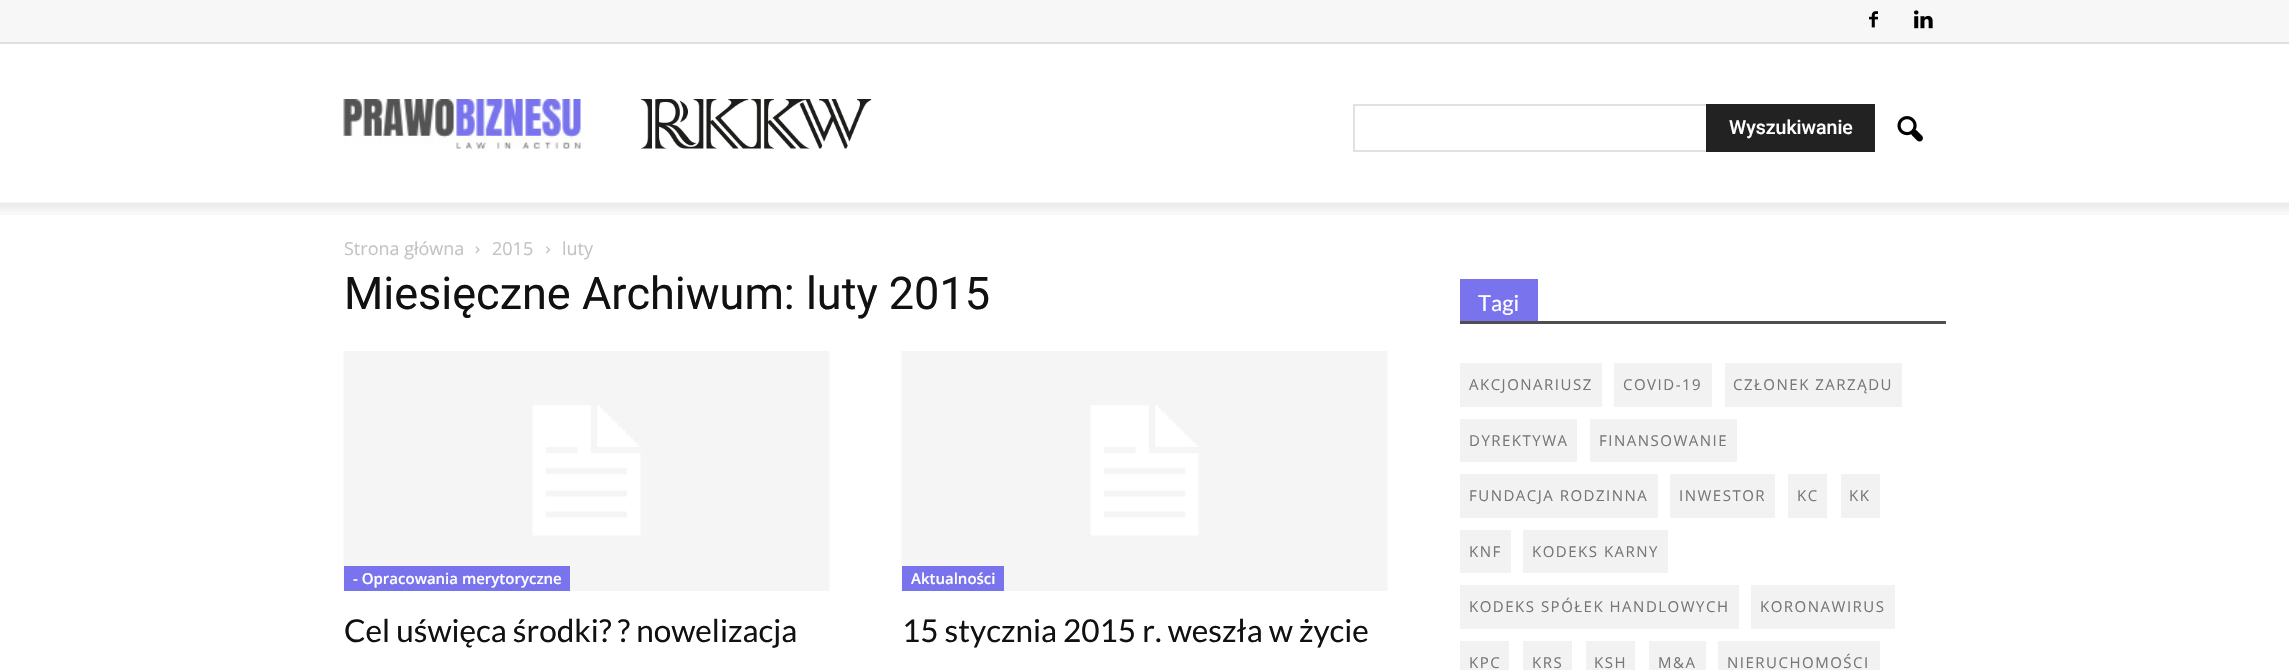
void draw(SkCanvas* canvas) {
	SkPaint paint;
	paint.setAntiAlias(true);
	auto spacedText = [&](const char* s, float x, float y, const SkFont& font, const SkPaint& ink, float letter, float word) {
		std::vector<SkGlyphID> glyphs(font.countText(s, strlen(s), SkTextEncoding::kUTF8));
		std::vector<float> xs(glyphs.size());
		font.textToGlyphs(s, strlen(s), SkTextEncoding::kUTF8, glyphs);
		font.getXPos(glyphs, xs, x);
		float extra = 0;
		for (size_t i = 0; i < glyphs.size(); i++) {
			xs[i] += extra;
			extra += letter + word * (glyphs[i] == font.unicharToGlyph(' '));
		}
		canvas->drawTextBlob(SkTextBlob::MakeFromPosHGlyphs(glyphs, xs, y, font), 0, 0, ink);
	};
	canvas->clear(0xffffffff);
	paint.setColor(0xfff7f7f7);
	canvas->drawRect(SkRect::MakeXYWH(0, 0, 2289, 42), paint);
	paint.setColor(0xffe0e0e0);
	canvas->drawRect(SkRect::MakeXYWH(0, 42, 2289, 2), paint);
	canvas->drawImageRect(SkImages::DeferredFromEncodedData(SkData::MakeFromFileName("img1.png")), SkRect::MakeXYWH(1869, 11, 9, 17), SkSamplingOptions());
	canvas->drawImageRect(SkImages::DeferredFromEncodedData(SkData::MakeFromFileName("img2.png")), SkRect::MakeXYWH(1914, 10, 19, 19), SkSamplingOptions());
	canvas->drawImageRect(SkImages::DeferredFromEncodedData(SkData::MakeFromFileName("img3.png")), SkRect::MakeXYWH(343, 99, 238, 50), SkSamplingOptions());
	canvas->drawImageRect(SkImages::DeferredFromEncodedData(SkData::MakeFromFileName("img4.png")), SkRect::MakeXYWH(640, 99, 232, 50), SkSamplingOptions());
	paint.setColor(0xffe1e1e1);
	canvas->drawRect(SkRect::MakeXYWH(1353, 104, 353, 2), paint);
	canvas->drawRect(SkRect::MakeXYWH(1353, 150, 353, 2), paint);
	canvas->drawRect(SkRect::MakeXYWH(1353, 104, 2, 48), paint);
	paint.setColor(0xff222222);
	canvas->drawRect(SkRect::MakeXYWH(1706, 104, 169, 48), paint);
	SkFont f1(fontMgr->matchFamilyStyle("Roboto", SkFontStyle(500, SkFontStyle::kNormal_Width, SkFontStyle::kUpright_Slant)), 19.5);
	f1.setSubpixel(true);
	paint.setColor(0xffffffff);
	canvas->drawString("Wyszukiwanie", 1729, 134, f1, paint);
	canvas->drawImageRect(SkImages::DeferredFromEncodedData(SkData::MakeFromFileName("img5.png")), SkRect::MakeXYWH(1897, 116, 26, 26), SkSamplingOptions());
	canvas->drawImageRect(SkImages::DeferredFromEncodedData(SkData::MakeFromFileName("img6.png")), SkRect::MakeXYWH(0, 202, 2289, 13), SkSamplingOptions());
	SkFont f2(fontMgr->matchFamilyStyle("Open Sans", SkFontStyle::Normal()), 18);
	f2.setSubpixel(true);
	paint.setColor(0xffc3c3c3);
	canvas->drawString("Strona główna", 344, 255, f2, paint);
	canvas->drawImageRect(SkImages::DeferredFromEncodedData(SkData::MakeFromFileName("img7.png")), SkRect::MakeXYWH(475, 246, 5, 8), SkSamplingOptions());
	canvas->drawString("2015", 492, 255, f2, paint);
	canvas->drawImageRect(SkImages::DeferredFromEncodedData(SkData::MakeFromFileName("img8.png")), SkRect::MakeXYWH(546, 246, 4, 8), SkSamplingOptions());
	canvas->drawString("luty", 562, 255, f2, paint);
	SkFont f3(fontMgr->matchFamilyStyle("Roboto", SkFontStyle::Normal()), 45);
	f3.setSubpixel(true);
	paint.setColor(0xff111111);
	canvas->drawString("Miesięczne Archiwum: luty 2015", 344, 309, f3, paint);
	canvas->drawImageRect(SkImages::DeferredFromEncodedData(SkData::MakeFromFileName("img9.png")), SkRect::MakeXYWH(343, 351, 487, 240), SkSamplingOptions());
	paint.setColor(0xff7974ed);
	canvas->drawRect(SkRect::MakeXYWH(344, 566, 226, 25), paint);
	SkFont f4(fontMgr->matchFamilyStyle("Open Sans", SkFontStyle(600, SkFontStyle::kNormal_Width, SkFontStyle::kUpright_Slant)), 15);
	f4.setSubpixel(true);
	paint.setColor(0xffffffff);
	canvas->drawString("- Opracowania merytoryczne", 353, 584, f4, paint);
	SkFont f5(fontMgr->matchFamilyStyle("Lato", SkFontStyle::Normal()), 31.5);
	f5.setSubpixel(true);
	paint.setColor(0xff111111);
	canvas->drawString("Cel uświęca środki? ? nowelizacja", 344, 642, f5, paint);
	canvas->drawImageRect(SkImages::DeferredFromEncodedData(SkData::MakeFromFileName("img9.png")), SkRect::MakeXYWH(901, 351, 487, 240), SkSamplingOptions());
	paint.setColor(0xff7974ed);
	canvas->drawRect(SkRect::MakeXYWH(902, 566, 102, 25), paint);
	paint.setColor(0xffffffff);
	canvas->drawString("Aktualności", 911, 584, f4, paint);
	paint.setColor(0xff111111);
	canvas->drawString("15 stycznia 2015 r. weszła w życie", 902, 642, f5, paint);
	paint.setColor(0xff4f4f4f);
	canvas->drawRect(SkRect::MakeXYWH(1460, 321, 486, 3), paint);
	paint.setColor(0xff7974ed);
	canvas->drawRect(SkRect::MakeXYWH(1460, 279, 78, 42), paint);
	SkFont f6(fontMgr->matchFamilyStyle("Lato", SkFontStyle::Normal()), 22);
	f6.setSubpixel(true);
	paint.setColor(0xffffffff);
	canvas->drawString("Tagi", 1478, 311, f6, paint);
	paint.setColor(0xfff2f2f2);
	canvas->drawRect(SkRect::MakeXYWH(1460, 363, 142, 44), paint);
	SkFont f7(fontMgr->matchFamilyStyle("Open Sans", SkFontStyle::Normal()), 15);
	f7.setSubpixel(true);
	paint.setColor(0xff777777);
	spacedText("AKCJONARIUSZ", 1469, 390, f7, paint, 1.5, 0);
	paint.setColor(0xfff2f2f2);
	canvas->drawRect(SkRect::MakeXYWH(1614, 363, 98, 44), paint);
	paint.setColor(0xff777777);
	spacedText("COVID-19", 1623, 390, f7, paint, 1.5, 0);
	paint.setColor(0xfff2f2f2);
	canvas->drawRect(SkRect::MakeXYWH(1725, 363, 177, 44), paint);
	paint.setColor(0xff777777);
	spacedText("CZŁONEK ZARZĄDU", 1733, 390, f7, paint, 1.5, 0);
	paint.setColor(0xfff2f2f2);
	canvas->drawRect(SkRect::MakeXYWH(1460, 419, 117, 43), paint);
	paint.setColor(0xff777777);
	spacedText("DYREKTYWA", 1469, 446, f7, paint, 1.5, 0);
	paint.setColor(0xfff2f2f2);
	canvas->drawRect(SkRect::MakeXYWH(1590, 419, 147, 43), paint);
	paint.setColor(0xff777777);
	spacedText("FINANSOWANIE", 1599, 446, f7, paint, 1.5, 0);
	paint.setColor(0xfff2f2f2);
	canvas->drawRect(SkRect::MakeXYWH(1460, 474, 198, 44), paint);
	paint.setColor(0xff777777);
	spacedText("FUNDACJA RODZINNA", 1469, 501, f7, paint, 1.5, 0);
	paint.setColor(0xfff2f2f2);
	canvas->drawRect(SkRect::MakeXYWH(1670, 474, 105, 44), paint);
	paint.setColor(0xff777777);
	spacedText("INWESTOR", 1679, 501, f7, paint, 1.5, 0);
	paint.setColor(0xfff2f2f2);
	canvas->drawRect(SkRect::MakeXYWH(1788, 474, 39, 44), paint);
	paint.setColor(0xff777777);
	spacedText("KC", 1797, 501, f7, paint, 1.5, 0);
	paint.setColor(0xfff2f2f2);
	canvas->drawRect(SkRect::MakeXYWH(1841, 474, 39, 44), paint);
	paint.setColor(0xff777777);
	spacedText("KK", 1849, 501, f7, paint, 1.5, 0);
	paint.setColor(0xfff2f2f2);
	canvas->drawRect(SkRect::MakeXYWH(1460, 530, 51, 43), paint);
	paint.setColor(0xff777777);
	spacedText("KNF", 1469, 557, f7, paint, 1.5, 0);
	paint.setColor(0xfff2f2f2);
	canvas->drawRect(SkRect::MakeXYWH(1523, 530, 145, 43), paint);
	paint.setColor(0xff777777);
	spacedText("KODEKS KARNY", 1532, 557, f7, paint, 1.5, 0);
	paint.setColor(0xfff2f2f2);
	canvas->drawRect(SkRect::MakeXYWH(1460, 585, 279, 44), paint);
	paint.setColor(0xff777777);
	spacedText("KODEKS SPÓŁEK HANDLOWYCH", 1469, 612, f7, paint, 1.5, 0);
	paint.setColor(0xfff2f2f2);
	canvas->drawRect(SkRect::MakeXYWH(1751, 585, 144, 44), paint);
	paint.setColor(0xff777777);
	spacedText("KORONAWIRUS", 1760, 612, f7, paint, 1.5, 0);
	paint.setColor(0xfff2f2f2);
	canvas->drawRect(SkRect::MakeXYWH(1460, 641, 49, 29), paint);
	paint.setColor(0xff777777);
	spacedText("KPC", 1469, 668, f7, paint, 1.5, 0);
	paint.setColor(0xfff2f2f2);
	canvas->drawRect(SkRect::MakeXYWH(1523, 641, 49, 29), paint);
	paint.setColor(0xff777777);
	spacedText("KRS", 1532, 668, f7, paint, 1.5, 0);
	paint.setColor(0xfff2f2f2);
	canvas->drawRect(SkRect::MakeXYWH(1586, 641, 49, 29), paint);
	paint.setColor(0xff777777);
	spacedText("KSH", 1594, 668, f7, paint, 1.5, 0);
	paint.setColor(0xfff2f2f2);
	canvas->drawRect(SkRect::MakeXYWH(1649, 641, 57, 29), paint);
	paint.setColor(0xff777777);
	spacedText("M&A", 1658, 668, f7, paint, 1.5, 0);
	paint.setColor(0xfff2f2f2);
	canvas->drawRect(SkRect::MakeXYWH(1718, 641, 162, 29), paint);
	paint.setColor(0xff777777);
	spacedText("NIERUCHOMOŚCI", 1727, 668, f7, paint, 1.5, 0);
}
